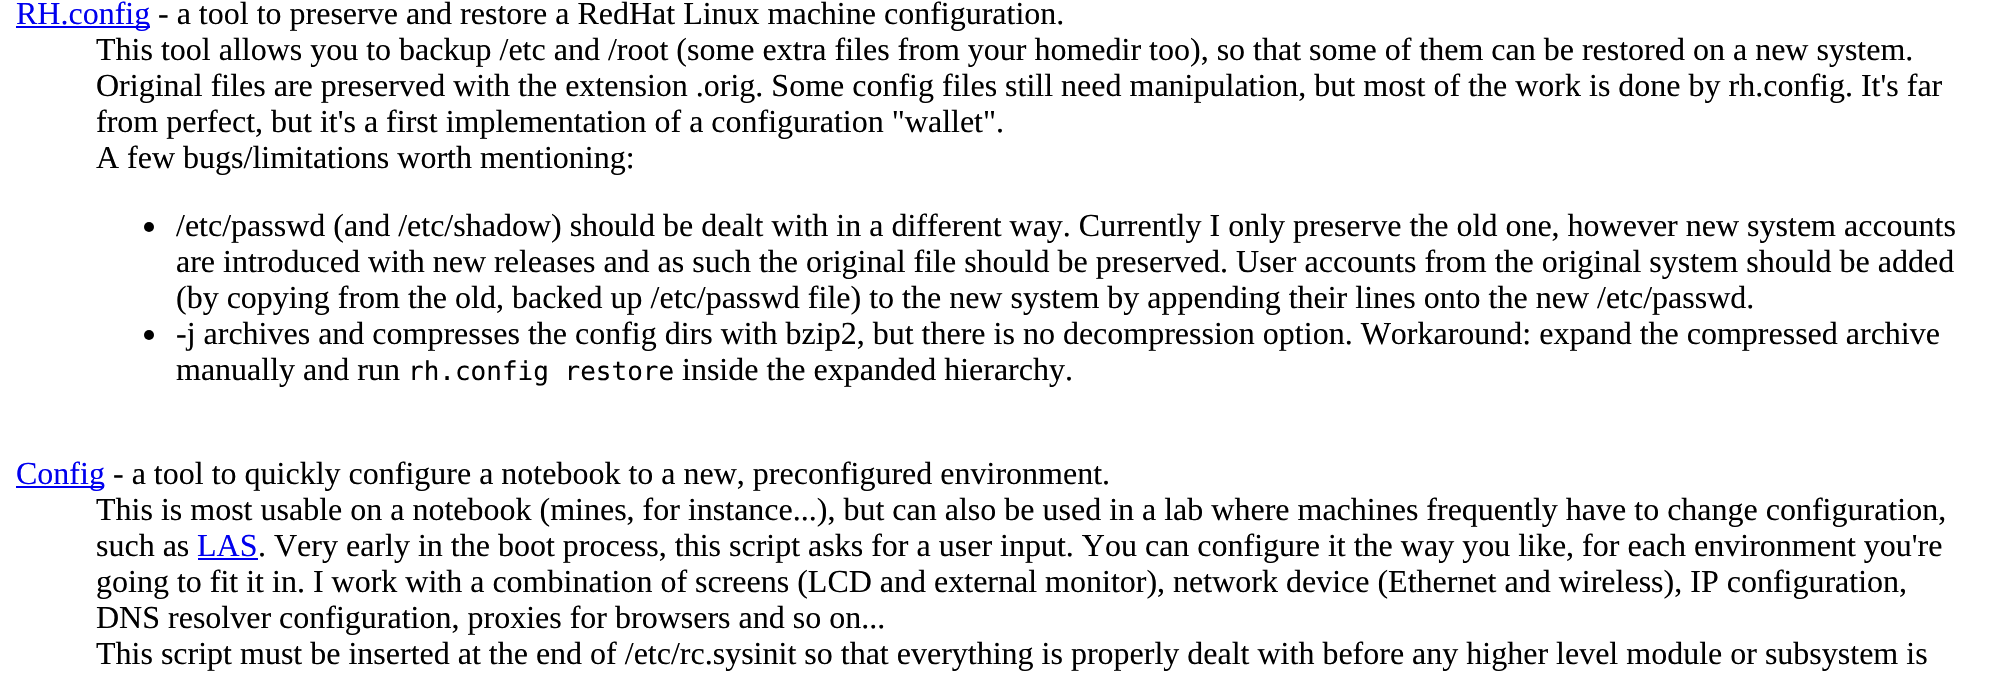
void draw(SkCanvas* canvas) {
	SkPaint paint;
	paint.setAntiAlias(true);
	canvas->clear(0xffffffff);
	paint.setColor(0xff0000ee);
	canvas->drawRect(SkRect::MakeXYWH(16, 26, 134, 2), paint);
	SkFont f1(fontMgr->matchFamilyStyle("Liberation Serif", SkFontStyle::Normal()), 32);
	f1.setSubpixel(true);
	canvas->drawString("RH.config", 16, 24, f1, paint);
	paint.setColor(0xff000000);
	canvas->drawString("- a tool to preserve and restore a RedHat Linux machine configuration.", 158, 24, f1, paint);
	canvas->drawString("This tool allows you to backup /etc and /root (some extra files from your homedir too), so that some of them can be restored on a new system.", 96, 60, f1, paint);
	canvas->drawString("Original files are preserved with the extension .orig. Some config files still need manipulation, but most of the work is done by rh.config. It's far", 96, 96, f1, paint);
	canvas->drawString("from perfect, but it's a first implementation of a configuration \"wallet\".", 96, 132, f1, paint);
	canvas->drawString("A few bugs/limitations worth mentioning:", 96, 168, f1, paint);
	canvas->drawCircle(149, 227, 5, paint);
	canvas->drawString("/etc/passwd (and /etc/shadow) should be dealt with in a different way. Currently I only preserve the old one, however new system accounts", 176, 236, f1, paint);
	canvas->drawString("are introduced with new releases and as such the original file should be preserved. User accounts from the original system should be added", 176, 272, f1, paint);
	canvas->drawString("(by copying from the old, backed up /etc/passwd file) to the new system by appending their lines onto the new /etc/passwd.", 176, 308, f1, paint);
	canvas->drawCircle(149, 335, 5, paint);
	canvas->drawString("-j archives and compresses the config dirs with bzip2, but there is no decompression option. Workaround: expand the compressed archive", 176, 344, f1, paint);
	canvas->drawString("manually and run", 176, 380, f1, paint);
	SkFont f2(fontMgr->matchFamilyStyle("DejaVu Sans Mono", SkFontStyle::Normal()), 26);
	f2.setSubpixel(true);
	canvas->drawString("rh.config restore", 408, 380, f2, paint);
	canvas->drawString("inside the expanded hierarchy.", 682, 380, f1, paint);
	paint.setColor(0xff0000ee);
	canvas->drawRect(SkRect::MakeXYWH(16, 486, 88, 2), paint);
	canvas->drawString("Config", 16, 484, f1, paint);
	paint.setColor(0xff000000);
	canvas->drawString("- a tool to quickly configure a notebook to a new, preconfigured environment.", 113, 484, f1, paint);
	canvas->drawString("This is most usable on a notebook (mines, for instance...), but can also be used in a lab where machines frequently have to change configuration,", 96, 520, f1, paint);
	canvas->drawString("such as", 96, 556, f1, paint);
	paint.setColor(0xff0000ee);
	canvas->drawString("LAS", 197, 556, f1, paint);
	canvas->drawRect(SkRect::MakeXYWH(198, 558, 60, 2), paint);
	paint.setColor(0xff000000);
	canvas->drawString(". Very early in the boot process, this script asks for a user input. You can configure it the way you like, for each environment you're", 258, 556, f1, paint);
	canvas->drawString("going to fit it in. I work with a combination of screens (LCD and external monitor), network device (Ethernet and wireless), IP configuration,", 96, 592, f1, paint);
	canvas->drawString("DNS resolver configuration, proxies for browsers and so on...", 96, 628, f1, paint);
	canvas->drawString("This script must be inserted at the end of /etc/rc.sysinit so that everything is properly dealt with before any higher level module or subsystem is", 96, 664, f1, paint);
}
